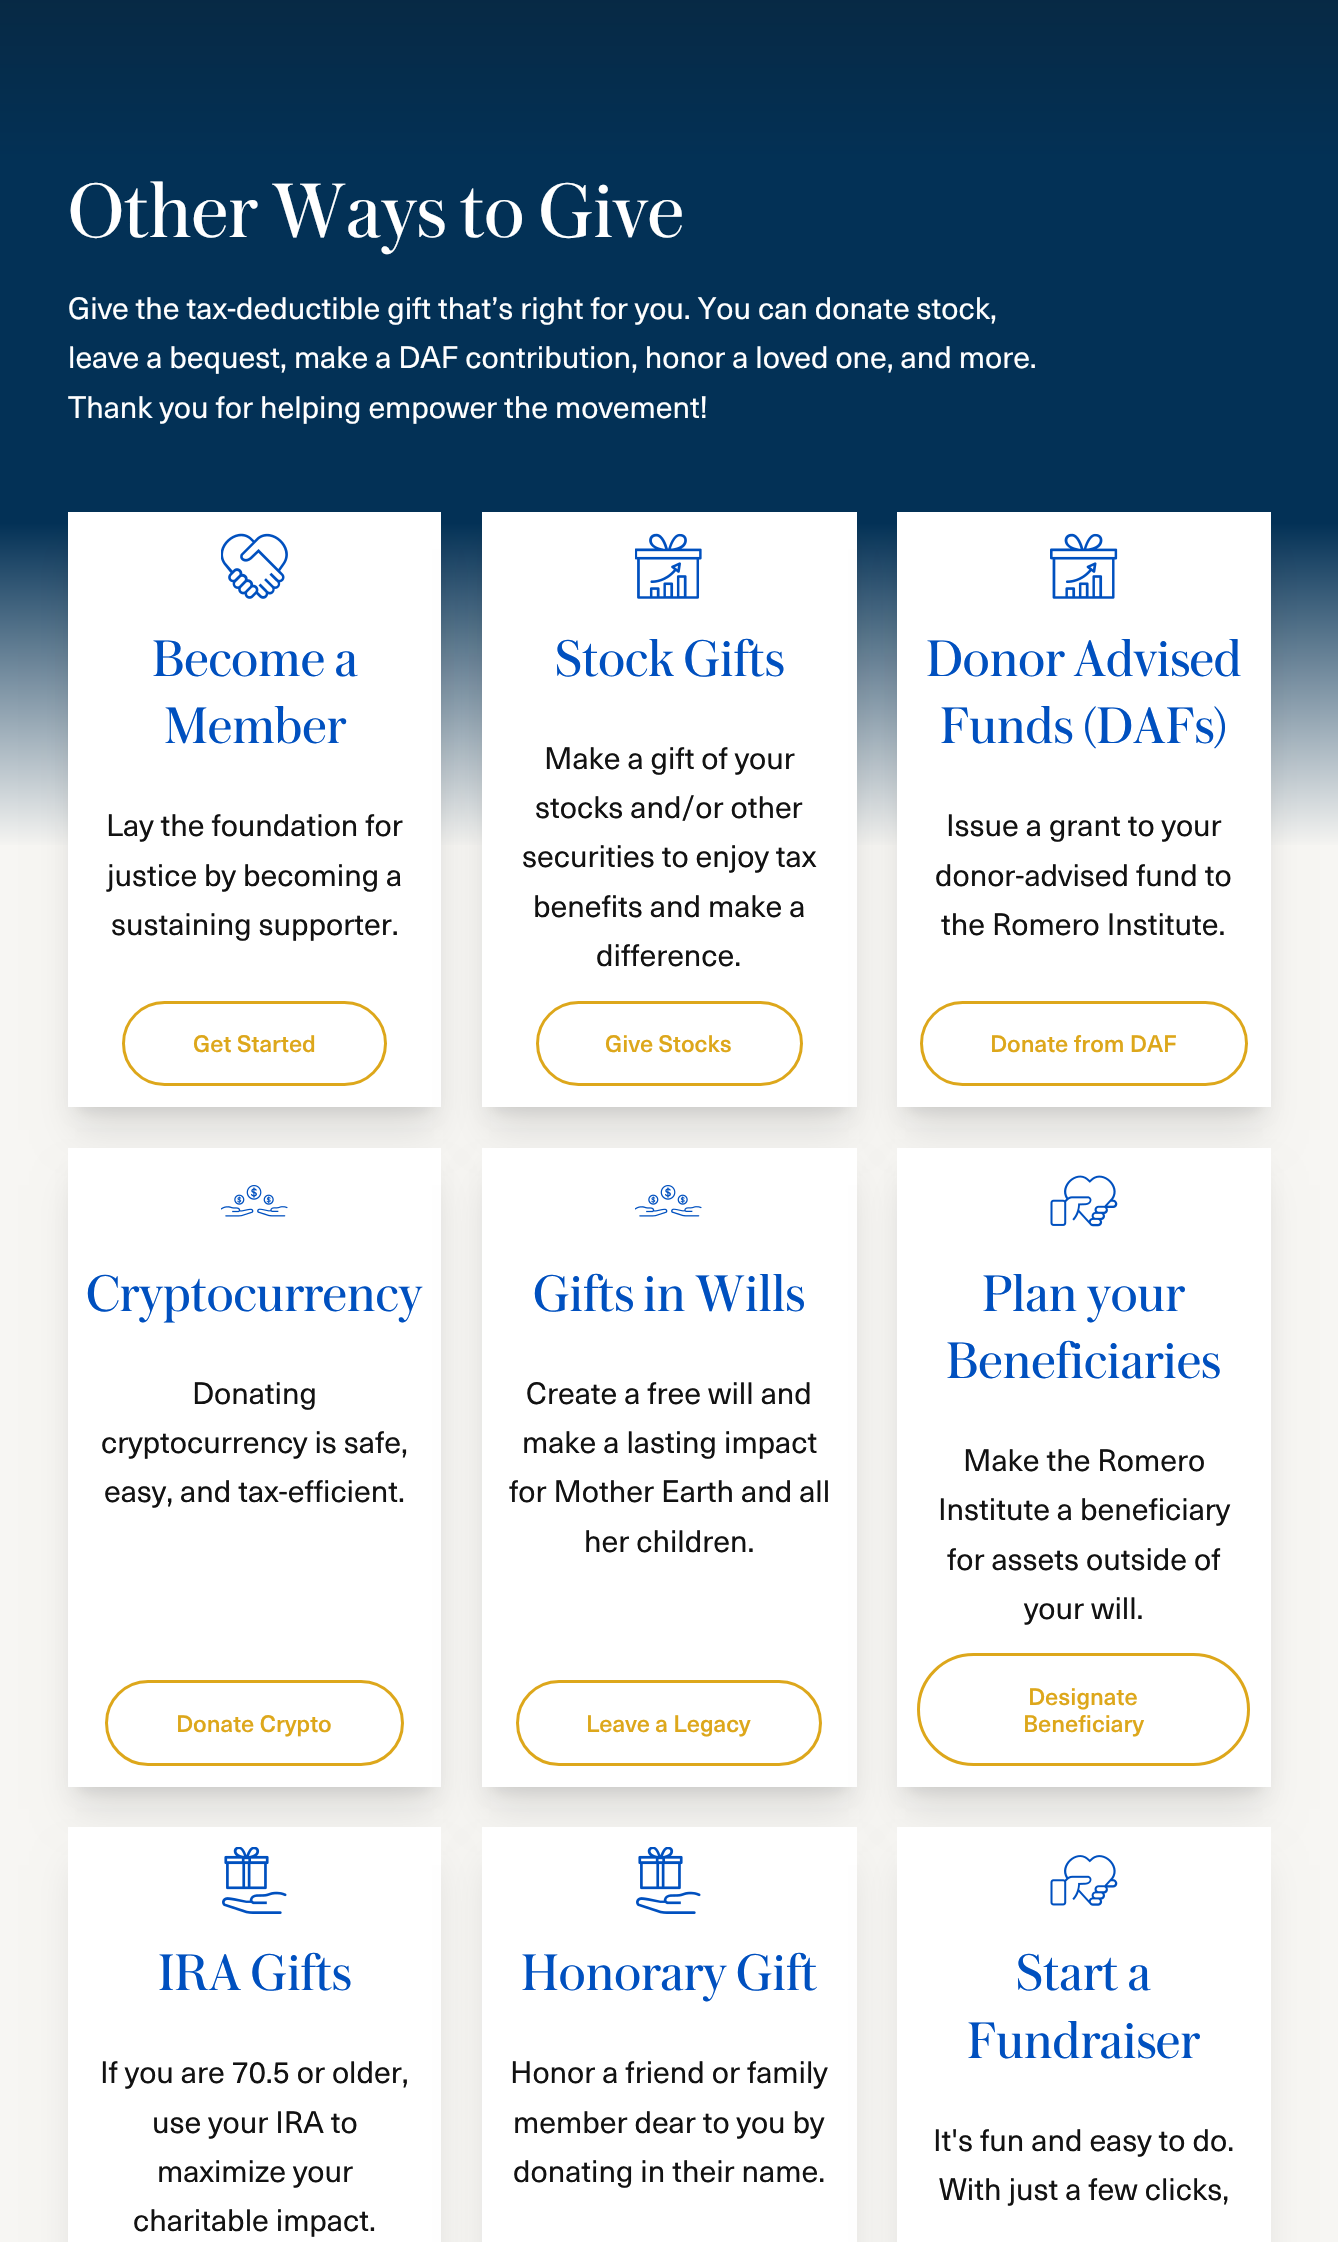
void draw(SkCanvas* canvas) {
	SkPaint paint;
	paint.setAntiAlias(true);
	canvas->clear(0xfff7f6f3);
	paint.setColor(0xff033156);
	canvas->drawRect(SkRect::MakeXYWH(0, 165, 1338, 359), paint);
	{
		const SkColor colors[] = {0xff033156, 0xff0b2234};
		const float stops[] = {0, 1};
		const SkPoint ends[] = {{669, 165}, {669, -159}};
		paint.setShader(SkGradientShader::MakeLinear(ends, colors, stops, 2, SkTileMode::kClamp));
		paint.setAlpha(255);
	}
	canvas->drawRect(SkRect::MakeXYWH(0, 0, 1338, 165), paint);
	{
		const SkColor colors[] = {0xff033156, 0xfff7f6f3};
		const float stops[] = {0, 1};
		const SkPoint ends[] = {{669, 523}, {669, 848}};
		paint.setShader(SkGradientShader::MakeLinear(ends, colors, stops, 2, SkTileMode::kClamp));
		paint.setAlpha(255);
	}
	canvas->drawRect(SkRect::MakeXYWH(0, 524, 1338, 321), paint);
	SkFont f1(fontMgr->matchFamilyStyle("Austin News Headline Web", SkFontStyle(300, SkFontStyle::kNormal_Width, SkFontStyle::kUpright_Slant)), 81);
	f1.setSubpixel(true);
	paint.setShader(nullptr);
	paint.setColor(0xffffffff);
	canvas->drawString("Other Ways to Give", 68, 237, f1, paint);
	SkFont f2(fontMgr->matchFamilyStyle("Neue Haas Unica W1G", SkFontStyle::Normal()), 30.4);
	f2.setSubpixel(true);
	canvas->drawString("Give the tax-deductible gift that’s right for you. You can donate stock,", 68, 319, f2, paint);
	canvas->drawString("leave a bequest, make a DAF contribution, honor a loved one, and more.", 68, 368, f2, paint);
	canvas->drawString("Thank you for helping empower the movement!", 68, 418, f2, paint);
	paint.setColor(0x1a000000);
	paint.setMaskFilter(SkMaskFilter::MakeBlur(kNormal_SkBlurStyle, 7.5));
	canvas->drawRect(SkRect::MakeXYWH(77, 533, 355, 577), paint);
	paint.setMaskFilter(nullptr);
	paint.setMaskFilter(SkMaskFilter::MakeBlur(kNormal_SkBlurStyle, 19));
	canvas->drawRect(SkRect::MakeXYWH(75, 549, 359, 581), paint);
	paint.setMaskFilter(nullptr);
	paint.setColor(0xffffffff);
	canvas->drawRect(SkRect::MakeXYWH(68, 512, 373, 595), paint);
	canvas->drawImageRect(SkImages::DeferredFromEncodedData(SkData::MakeFromFileName("img1.png")), SkRect::MakeXYWH(221, 533, 67, 66), SkSamplingOptions());
	SkFont f3(fontMgr->matchFamilyStyle("Austin News Headline Web", SkFontStyle(300, SkFontStyle::kNormal_Width, SkFontStyle::kUpright_Slant)), 54);
	f3.setSubpixel(true);
	paint.setColor(0xff0050bf);
	canvas->drawString("Become a", 152, 676, f3, paint);
	canvas->drawString("Member", 164, 743, f3, paint);
	paint.setColor(0xff121212);
	canvas->drawString("Lay the foundation for", 106, 836, f2, paint);
	canvas->drawString("justice by becoming a", 107, 886, f2, paint);
	canvas->drawString("sustaining supporter.", 111, 935, f2, paint);
	paint.setStroke(true);
	paint.setStrokeWidth(3);
	paint.setColor(0xffdda71b);
	canvas->drawRoundRect(SkRect::MakeXYWH(123.5, 1002.5, 262, 82), 41, 41, paint);
	SkFont f4(fontMgr->matchFamilyStyle("Neue Haas Unica W1G", SkFontStyle(500, SkFontStyle::kNormal_Width, SkFontStyle::kUpright_Slant)), 23.5);
	f4.setSubpixel(true);
	paint.setStroke(false);
	canvas->drawString("Get Started", 193, 1052, f4, paint);
	paint.setColor(0x1a000000);
	paint.setMaskFilter(SkMaskFilter::MakeBlur(kNormal_SkBlurStyle, 7.5));
	canvas->drawRect(SkRect::MakeXYWH(491, 533, 357, 577), paint);
	paint.setMaskFilter(nullptr);
	paint.setMaskFilter(SkMaskFilter::MakeBlur(kNormal_SkBlurStyle, 19));
	canvas->drawRect(SkRect::MakeXYWH(489, 549, 360, 581), paint);
	paint.setMaskFilter(nullptr);
	paint.setColor(0xffffffff);
	canvas->drawRect(SkRect::MakeXYWH(482, 512, 375, 595), paint);
	canvas->drawImageRect(SkImages::DeferredFromEncodedData(SkData::MakeFromFileName("img2.png")), SkRect::MakeXYWH(635, 533, 67, 66), SkSamplingOptions());
	paint.setColor(0xff0050bf);
	canvas->drawString("Stock Gifts", 555, 676, f3, paint);
	paint.setColor(0xff121212);
	canvas->drawString("Make a gift of your", 544, 769, f2, paint);
	canvas->drawString("stocks and/or other", 535, 818, f2, paint);
	canvas->drawString("securities to enjoy tax", 522, 867, f2, paint);
	canvas->drawString("benefits and make a", 533, 917, f2, paint);
	canvas->drawString("difference.", 596, 966, f2, paint);
	paint.setStroke(true);
	paint.setColor(0xffdda71b);
	canvas->drawRoundRect(SkRect::MakeXYWH(537.5, 1002.5, 264, 82), 41, 41, paint);
	paint.setStroke(false);
	canvas->drawString("Give Stocks", 605, 1052, f4, paint);
	paint.setColor(0x1a000000);
	paint.setMaskFilter(SkMaskFilter::MakeBlur(kNormal_SkBlurStyle, 7.5));
	canvas->drawRect(SkRect::MakeXYWH(906, 533, 356, 577), paint);
	paint.setMaskFilter(nullptr);
	paint.setMaskFilter(SkMaskFilter::MakeBlur(kNormal_SkBlurStyle, 19));
	canvas->drawRect(SkRect::MakeXYWH(905, 549, 358, 581), paint);
	paint.setMaskFilter(nullptr);
	paint.setColor(0xffffffff);
	canvas->drawRect(SkRect::MakeXYWH(897, 512, 374, 595), paint);
	canvas->drawImageRect(SkImages::DeferredFromEncodedData(SkData::MakeFromFileName("img3.png")), SkRect::MakeXYWH(1050, 533, 68, 66), SkSamplingOptions());
	paint.setColor(0xff0050bf);
	canvas->drawString("Donor Advised", 926, 676, f3, paint);
	canvas->drawString("Funds (DAFs)", 940, 743, f3, paint);
	paint.setColor(0xff121212);
	canvas->drawString("Issue a grant to your", 946, 836, f2, paint);
	canvas->drawString("donor-advised fund to", 935, 886, f2, paint);
	canvas->drawString("the Romero Institute.", 941, 935, f2, paint);
	paint.setStroke(true);
	paint.setColor(0xffdda71b);
	canvas->drawRoundRect(SkRect::MakeXYWH(921.5, 1002.5, 325, 82), 41, 41, paint);
	paint.setStroke(false);
	canvas->drawString("Donate from DAF", 990, 1052, f4, paint);
	paint.setColor(0x1a000000);
	paint.setMaskFilter(SkMaskFilter::MakeBlur(kNormal_SkBlurStyle, 7.5));
	canvas->drawRect(SkRect::MakeXYWH(77, 1169, 355, 621), paint);
	paint.setMaskFilter(nullptr);
	paint.setMaskFilter(SkMaskFilter::MakeBlur(kNormal_SkBlurStyle, 19));
	canvas->drawRect(SkRect::MakeXYWH(75, 1185, 359, 624), paint);
	paint.setMaskFilter(nullptr);
	paint.setColor(0xffffffff);
	canvas->drawRect(SkRect::MakeXYWH(68, 1148, 373, 639), paint);
	canvas->drawImageRect(SkImages::DeferredFromEncodedData(SkData::MakeFromFileName("img4.png")), SkRect::MakeXYWH(221, 1185, 67, 32), SkSamplingOptions());
	paint.setColor(0xff0050bf);
	canvas->drawString("Cryptocurrency", 86, 1311, f3, paint);
	paint.setColor(0xff121212);
	canvas->drawString("Donating", 192, 1404, f2, paint);
	canvas->drawString("cryptocurrency is safe,", 101, 1453, f2, paint);
	canvas->drawString("easy, and tax-efficient.", 104, 1502, f2, paint);
	paint.setStroke(true);
	paint.setColor(0xffdda71b);
	canvas->drawRoundRect(SkRect::MakeXYWH(106.5, 1681.5, 296, 83), 41.5, 41.5, paint);
	paint.setStroke(false);
	canvas->drawString("Donate Crypto", 176, 1732, f4, paint);
	paint.setColor(0x1a000000);
	paint.setMaskFilter(SkMaskFilter::MakeBlur(kNormal_SkBlurStyle, 7.5));
	canvas->drawRect(SkRect::MakeXYWH(491, 1169, 357, 621), paint);
	paint.setMaskFilter(nullptr);
	paint.setMaskFilter(SkMaskFilter::MakeBlur(kNormal_SkBlurStyle, 19));
	canvas->drawRect(SkRect::MakeXYWH(489, 1185, 360, 624), paint);
	paint.setMaskFilter(nullptr);
	paint.setColor(0xffffffff);
	canvas->drawRect(SkRect::MakeXYWH(482, 1148, 375, 639), paint);
	canvas->drawImageRect(SkImages::DeferredFromEncodedData(SkData::MakeFromFileName("img4.png")), SkRect::MakeXYWH(635, 1185, 67, 32), SkSamplingOptions());
	paint.setColor(0xff0050bf);
	canvas->drawString("Gifts in Wills", 533, 1311, f3, paint);
	paint.setColor(0xff121212);
	canvas->drawString("Create a free will and", 526, 1404, f2, paint);
	canvas->drawString("make a lasting impact", 522, 1453, f2, paint);
	canvas->drawString("for Mother Earth and all", 509, 1502, f2, paint);
	canvas->drawString("her children.", 584, 1552, f2, paint);
	paint.setStroke(true);
	paint.setColor(0xffdda71b);
	canvas->drawRoundRect(SkRect::MakeXYWH(517.5, 1681.5, 303, 83), 41.5, 41.5, paint);
	paint.setStroke(false);
	canvas->drawString("Leave a Legacy", 586, 1732, f4, paint);
	paint.setColor(0x1a000000);
	paint.setMaskFilter(SkMaskFilter::MakeBlur(kNormal_SkBlurStyle, 7.5));
	canvas->drawRect(SkRect::MakeXYWH(906, 1169, 356, 621), paint);
	paint.setMaskFilter(nullptr);
	paint.setMaskFilter(SkMaskFilter::MakeBlur(kNormal_SkBlurStyle, 19));
	canvas->drawRect(SkRect::MakeXYWH(905, 1185, 358, 624), paint);
	paint.setMaskFilter(nullptr);
	paint.setColor(0xffffffff);
	canvas->drawRect(SkRect::MakeXYWH(897, 1148, 374, 639), paint);
	canvas->drawImageRect(SkImages::DeferredFromEncodedData(SkData::MakeFromFileName("img5.png")), SkRect::MakeXYWH(1050, 1175, 68, 52), SkSamplingOptions());
	paint.setColor(0xff0050bf);
	canvas->drawString("Plan your", 982, 1311, f3, paint);
	canvas->drawString("Beneficiaries", 946, 1378, f3, paint);
	paint.setColor(0xff121212);
	canvas->drawString("Make the Romero", 963, 1471, f2, paint);
	canvas->drawString("Institute a beneficiary", 938, 1520, f2, paint);
	canvas->drawString("for assets outside of", 947, 1570, f2, paint);
	canvas->drawString("your will.", 1024, 1619, f2, paint);
	paint.setStroke(true);
	paint.setColor(0xffdda71b);
	canvas->drawRoundRect(SkRect::MakeXYWH(918.5, 1654.5, 330, 110), 55, 55, paint);
	paint.setStroke(false);
	canvas->drawString("Designate", 1028, 1705, f4, paint);
	canvas->drawString("Beneficiary", 1023, 1732, f4, paint);
	paint.setColor(0x1a000000);
	paint.setMaskFilter(SkMaskFilter::MakeBlur(kNormal_SkBlurStyle, 19));
	canvas->drawRect(SkRect::MakeXYWH(75, 1865, 359, 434), paint);
	paint.setMaskFilter(nullptr);
	paint.setColor(0xffffffff);
	canvas->drawRect(SkRect::MakeXYWH(68, 1827, 373, 415), paint);
	canvas->drawImageRect(SkImages::DeferredFromEncodedData(SkData::MakeFromFileName("img6.png")), SkRect::MakeXYWH(222, 1847, 65, 67), SkSamplingOptions());
	paint.setColor(0xff0050bf);
	canvas->drawString("IRA Gifts", 158, 1990, f3, paint);
	paint.setColor(0xff121212);
	canvas->drawString("If you are 70.5 or older,", 100, 2083, f2, paint);
	canvas->drawString("use your IRA to", 152, 2133, f2, paint);
	canvas->drawString("maximize your", 157, 2182, f2, paint);
	canvas->drawString("charitable impact.", 133, 2231, f2, paint);
	paint.setColor(0x1a000000);
	paint.setMaskFilter(SkMaskFilter::MakeBlur(kNormal_SkBlurStyle, 19));
	canvas->drawRect(SkRect::MakeXYWH(489, 1865, 360, 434), paint);
	paint.setMaskFilter(nullptr);
	paint.setColor(0xffffffff);
	canvas->drawRect(SkRect::MakeXYWH(482, 1827, 375, 415), paint);
	canvas->drawImageRect(SkImages::DeferredFromEncodedData(SkData::MakeFromFileName("img6.png")), SkRect::MakeXYWH(636, 1847, 65, 67), SkSamplingOptions());
	paint.setColor(0xff0050bf);
	canvas->drawString("Honorary Gift", 521, 1990, f3, paint);
	paint.setColor(0xff121212);
	canvas->drawString("Honor a friend or family", 510, 2083, f2, paint);
	canvas->drawString("member dear to you by", 513, 2133, f2, paint);
	canvas->drawString("donating in their name.", 513, 2182, f2, paint);
	paint.setColor(0x1a000000);
	paint.setMaskFilter(SkMaskFilter::MakeBlur(kNormal_SkBlurStyle, 19));
	canvas->drawRect(SkRect::MakeXYWH(905, 1865, 358, 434), paint);
	paint.setMaskFilter(nullptr);
	paint.setColor(0xffffffff);
	canvas->drawRect(SkRect::MakeXYWH(897, 1827, 374, 415), paint);
	canvas->drawImageRect(SkImages::DeferredFromEncodedData(SkData::MakeFromFileName("img7.png")), SkRect::MakeXYWH(1050, 1855, 68, 51), SkSamplingOptions());
	paint.setColor(0xff0050bf);
	canvas->drawString("Start a", 1016, 1990, f3, paint);
	canvas->drawString("Fundraiser", 967, 2058, f3, paint);
	paint.setColor(0xff121212);
	canvas->drawString("It's fun and easy to do.", 933, 2151, f2, paint);
	canvas->drawString("With just a few clicks,", 939, 2200, f2, paint);
}
